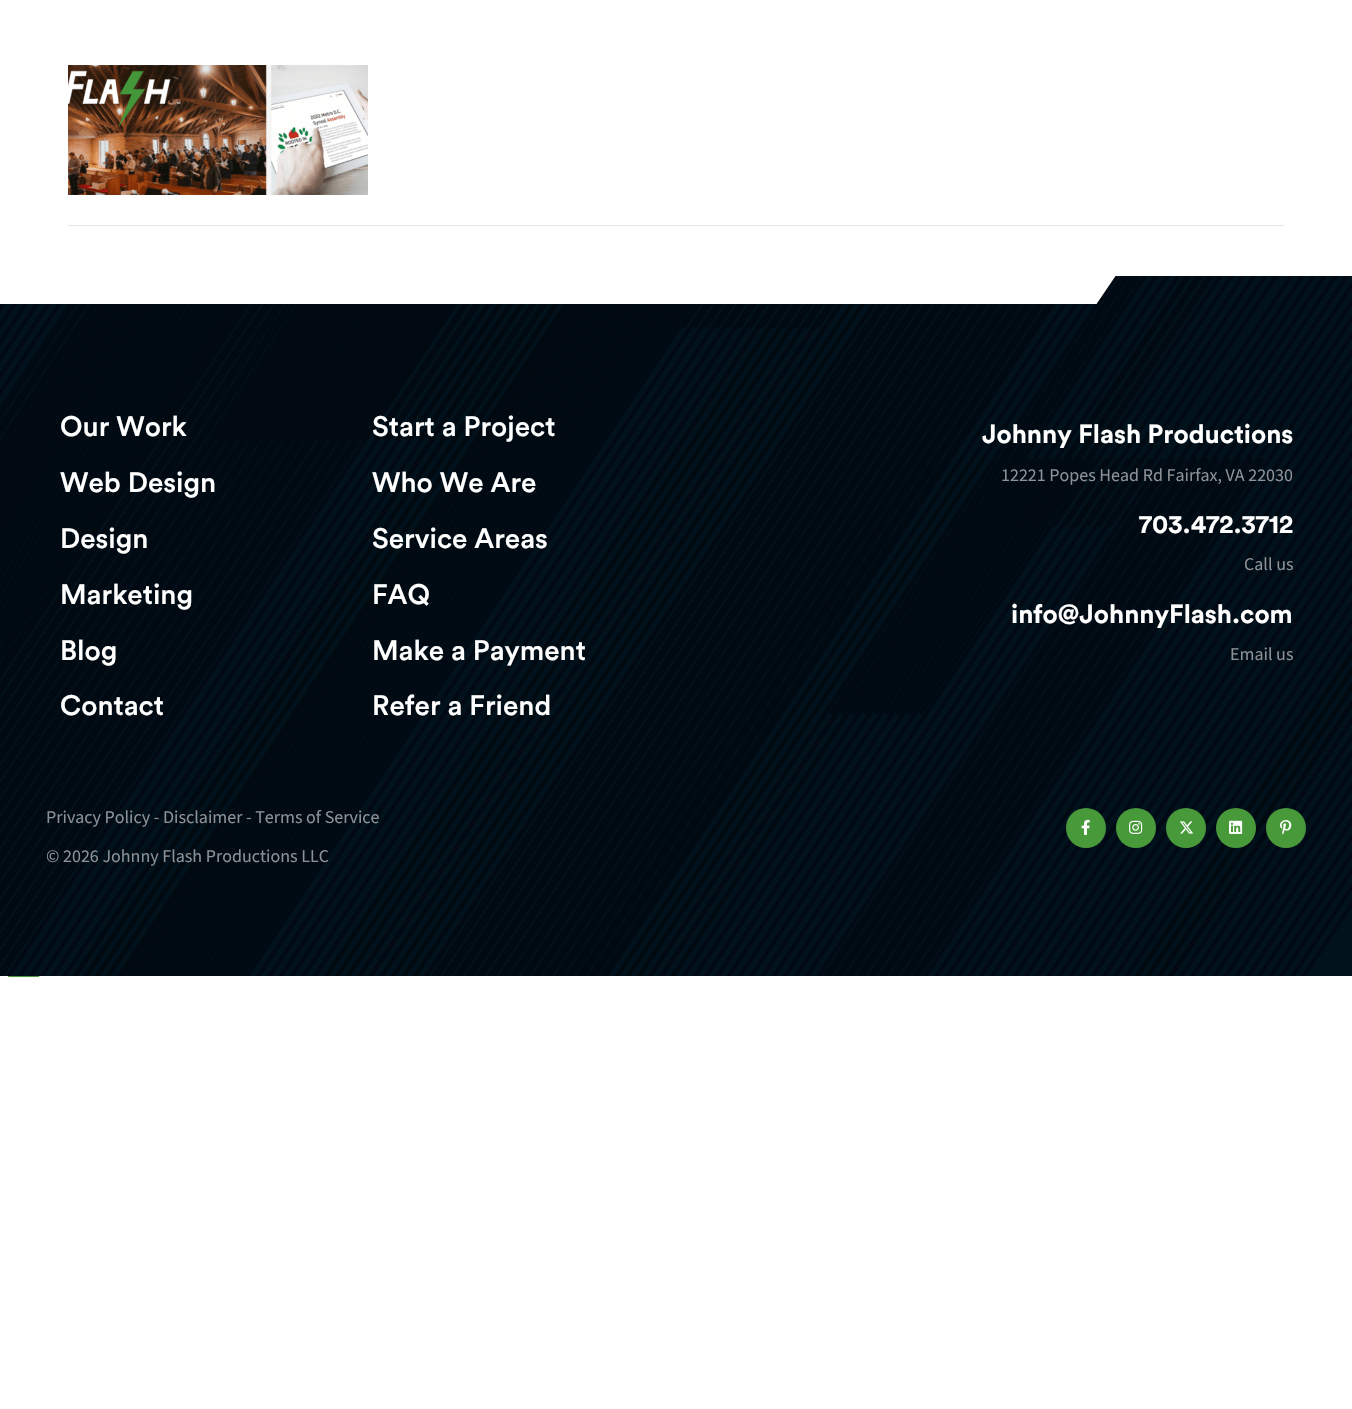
void draw(SkCanvas* canvas) {
	SkPaint paint;
	paint.setAntiAlias(true);
	canvas->clear(0xffffffff);
	canvas->drawImageRect(SkImages::DeferredFromEncodedData(SkData::MakeFromFileName("img1.png")), SkRect::MakeXYWH(68, 65, 300, 130), SkSamplingOptions());
	paint.setColor(0xffe6e6e6);
	canvas->drawRect(SkRect::MakeXYWH(68, 225, 1216, 1), paint);
	canvas->drawImageRect(SkImages::DeferredFromEncodedData(SkData::MakeFromFileName("img2.png")), SkRect::MakeXYWH(68, 65, 106, 62), SkSamplingOptions());
	canvas->drawImageRect(SkImages::DeferredFromEncodedData(SkData::MakeFromFileName("img3.png")), SkRect::MakeXYWH(0, 276, 1352, 700), SkSamplingOptions());
	SkFont f1(fontMgr->matchFamilyStyle("Circular", SkFontStyle(500, SkFontStyle::kNormal_Width, SkFontStyle::kUpright_Slant)), 28);
	f1.setSubpixel(true);
	paint.setColor(0xffffffff);
	canvas->drawString("Our Work", 60, 436, f1, paint);
	canvas->drawString("Web Design", 60, 492, f1, paint);
	canvas->drawString("Design", 60, 548, f1, paint);
	canvas->drawString("Marketing", 60, 604, f1, paint);
	canvas->drawString("Blog", 60, 660, f1, paint);
	canvas->drawString("Contact", 60, 715, f1, paint);
	canvas->drawString("Start a Project", 372, 436, f1, paint);
	canvas->drawString("Who We Are", 372, 492, f1, paint);
	canvas->drawString("Service Areas", 372, 548, f1, paint);
	canvas->drawString("FAQ", 372, 604, f1, paint);
	canvas->drawString("Make a Payment", 372, 660, f1, paint);
	canvas->drawString("Refer a Friend", 372, 715, f1, paint);
	SkFont f2(fontMgr->matchFamilyStyle("Circular", SkFontStyle::Bold()), 26);
	f2.setSubpixel(true);
	canvas->drawString("Johnny Flash Productions", 982, 443, f2, paint);
	SkFont f3(fontMgr->matchFamilyStyle("Source Sans 3", SkFontStyle::Normal()), 18);
	f3.setSubpixel(true);
	paint.setColor(0xff8d9296);
	canvas->drawString("12221 Popes Head Rd Fairfax, VA 22030", 1001, 481, f3, paint);
	paint.setColor(0xffffffff);
	canvas->drawString("703.472.3712", 1139, 533, f2, paint);
	paint.setColor(0xff8d9296);
	canvas->drawString("Call us", 1244, 570, f3, paint);
	paint.setColor(0xffffffff);
	canvas->drawString("info@JohnnyFlash.com", 1011, 623, f2, paint);
	paint.setColor(0xff8d9296);
	canvas->drawString("Email us", 1230, 660, f3, paint);
	canvas->drawString("Privacy Policy - Disclaimer", 46, 823, f3, paint);
	canvas->drawString("- Terms of Service", 246, 823, f3, paint);
	canvas->drawString("© 2026 Johnny Flash Productions LLC", 46, 862, f3, paint);
	paint.setColor(0xff48993a);
	canvas->drawCircle(1086, 828, 20, paint);
	canvas->drawImageRect(SkImages::DeferredFromEncodedData(SkData::MakeFromFileName("img4.png")), SkRect::MakeXYWH(1081, 819, 9, 16), SkSamplingOptions());
	canvas->drawCircle(1136, 828, 20, paint);
	canvas->drawImageRect(SkImages::DeferredFromEncodedData(SkData::MakeFromFileName("img5.png")), SkRect::MakeXYWH(1129, 820, 14, 14), SkSamplingOptions());
	canvas->drawCircle(1186, 828, 20, paint);
	canvas->drawImageRect(SkImages::DeferredFromEncodedData(SkData::MakeFromFileName("img6.png")), SkRect::MakeXYWH(1179, 821, 15, 13), SkSamplingOptions());
	canvas->drawCircle(1236, 828, 20, paint);
	canvas->drawImageRect(SkImages::DeferredFromEncodedData(SkData::MakeFromFileName("img7.png")), SkRect::MakeXYWH(1229, 820, 14, 14), SkSamplingOptions());
	canvas->drawCircle(1286, 828, 20, paint);
	canvas->drawImageRect(SkImages::DeferredFromEncodedData(SkData::MakeFromFileName("img8.png")), SkRect::MakeXYWH(1280, 820, 12, 15), SkSamplingOptions());
	canvas->drawImageRect(SkImages::DeferredFromEncodedData(SkData::MakeFromFileName("img9.png")), SkRect::MakeXYWH(7, 976, 33, 1), SkSamplingOptions());
}
